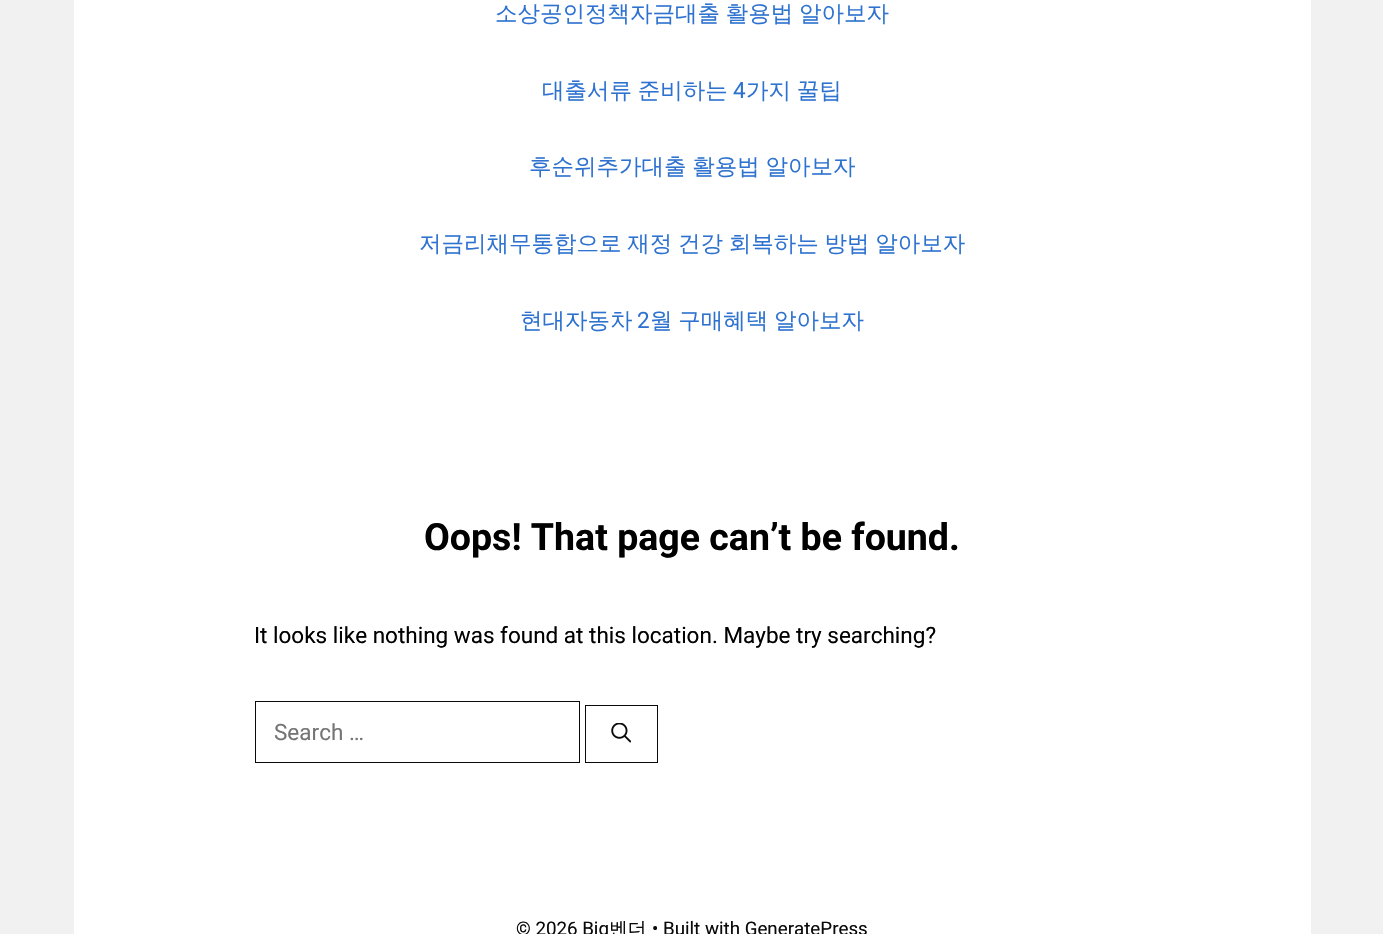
void draw(SkCanvas* canvas) {
	SkPaint paint;
	paint.setAntiAlias(true);
	auto spacedText = [&](const char* s, float x, float y, const SkFont& font, const SkPaint& ink, float letter, float word) {
		std::vector<SkGlyphID> glyphs(font.countText(s, strlen(s), SkTextEncoding::kUTF8));
		std::vector<float> xs(glyphs.size());
		font.textToGlyphs(s, strlen(s), SkTextEncoding::kUTF8, glyphs);
		font.getXPos(glyphs, xs, x);
		float extra = 0;
		for (size_t i = 0; i < glyphs.size(); i++) {
			xs[i] += extra;
			extra += letter + word * (glyphs[i] == font.unicharToGlyph(' '));
		}
		canvas->drawTextBlob(SkTextBlob::MakeFromPosHGlyphs(glyphs, xs, y, font), 0, 0, ink);
	};
	canvas->clear(0xfff1f1f1);
	paint.setColor(0xffffffff);
	canvas->drawRect(SkRect::MakeXYWH(74, 0, 1237, 934), paint);
	SkFont f1(fontMgr->matchFamilyStyle("WenQuanYi Zen Hei", SkFontStyle(500, SkFontStyle::kNormal_Width, SkFontStyle::kUpright_Slant)), 22.5);
	f1.setSubpixel(true);
	paint.setColor(0xff2e72d0);
	spacedText("소상공인정책자금대출 활용법 알아보자", 495, 21, f1, paint, 0, -1);
	spacedText("대출서류 준비하는", 542, 98, f1, paint, 0, -1);
	SkFont f2(fontMgr->matchFamilyStyle("Roboto", SkFontStyle::Normal()), 22.5);
	f2.setSubpixel(true);
	canvas->drawString("4", 733, 98, f2, paint);
	spacedText("가지 꿀팁", 746, 98, f1, paint, 0, -1);
	spacedText("후순위추가대출 활용법 알아보자", 529, 174, f1, paint, 0, -1);
	spacedText("저금리채무통합으로 재정 건강 회복하는 방법 알아보자", 419, 251, f1, paint, 0, -1);
	canvas->drawString("현대자동차", 520, 328, f1, paint);
	canvas->drawString("2", 637, 328, f2, paint);
	spacedText("월 구매혜택 알아보자", 650, 328, f1, paint, 0, -1);
	SkFont f3(fontMgr->matchFamilyStyle("Roboto", SkFontStyle::Bold()), 37.5);
	f3.setSubpixel(true);
	paint.setColor(0xff000000);
	canvas->drawString("Oops! That page can’t be found.", 424, 550, f3, paint);
	canvas->drawString("It looks like nothing was found at this location. Maybe try searching?", 254, 643, f2, paint);
	paint.setStroke(true);
	paint.setStrokeWidth(1);
	paint.setColor(0xff0a0a0a);
	canvas->drawRect(SkRect::MakeXYWH(255.5, 701.5, 324, 61), paint);
	paint.setStroke(false);
	paint.setColor(0xff757575);
	canvas->drawString("Search …", 274, 740, f2, paint);
	paint.setStroke(true);
	paint.setColor(0xff0a0a0a);
	canvas->drawRect(SkRect::MakeXYWH(585.5, 705.5, 72, 57), paint);
	canvas->drawImageRect(SkImages::DeferredFromEncodedData(SkData::MakeFromFileName("img1.png")), SkRect::MakeXYWH(611, 723, 20, 20), SkSamplingOptions());
	SkFont f4(fontMgr->matchFamilyStyle("Roboto", SkFontStyle::Normal()), 18.75);
	f4.setSubpixel(true);
	paint.setStroke(false);
	canvas->drawString("© 2026 Big", 516, 935, f4, paint);
	SkFont f5(fontMgr->matchFamilyStyle("WenQuanYi Zen Hei", SkFontStyle(500, SkFontStyle::kNormal_Width, SkFontStyle::kUpright_Slant)), 18.75);
	f5.setSubpixel(true);
	canvas->drawString("벤더", 609, 935, f5, paint);
	canvas->drawString("• Built with GeneratePress", 652, 935, f4, paint);
}
